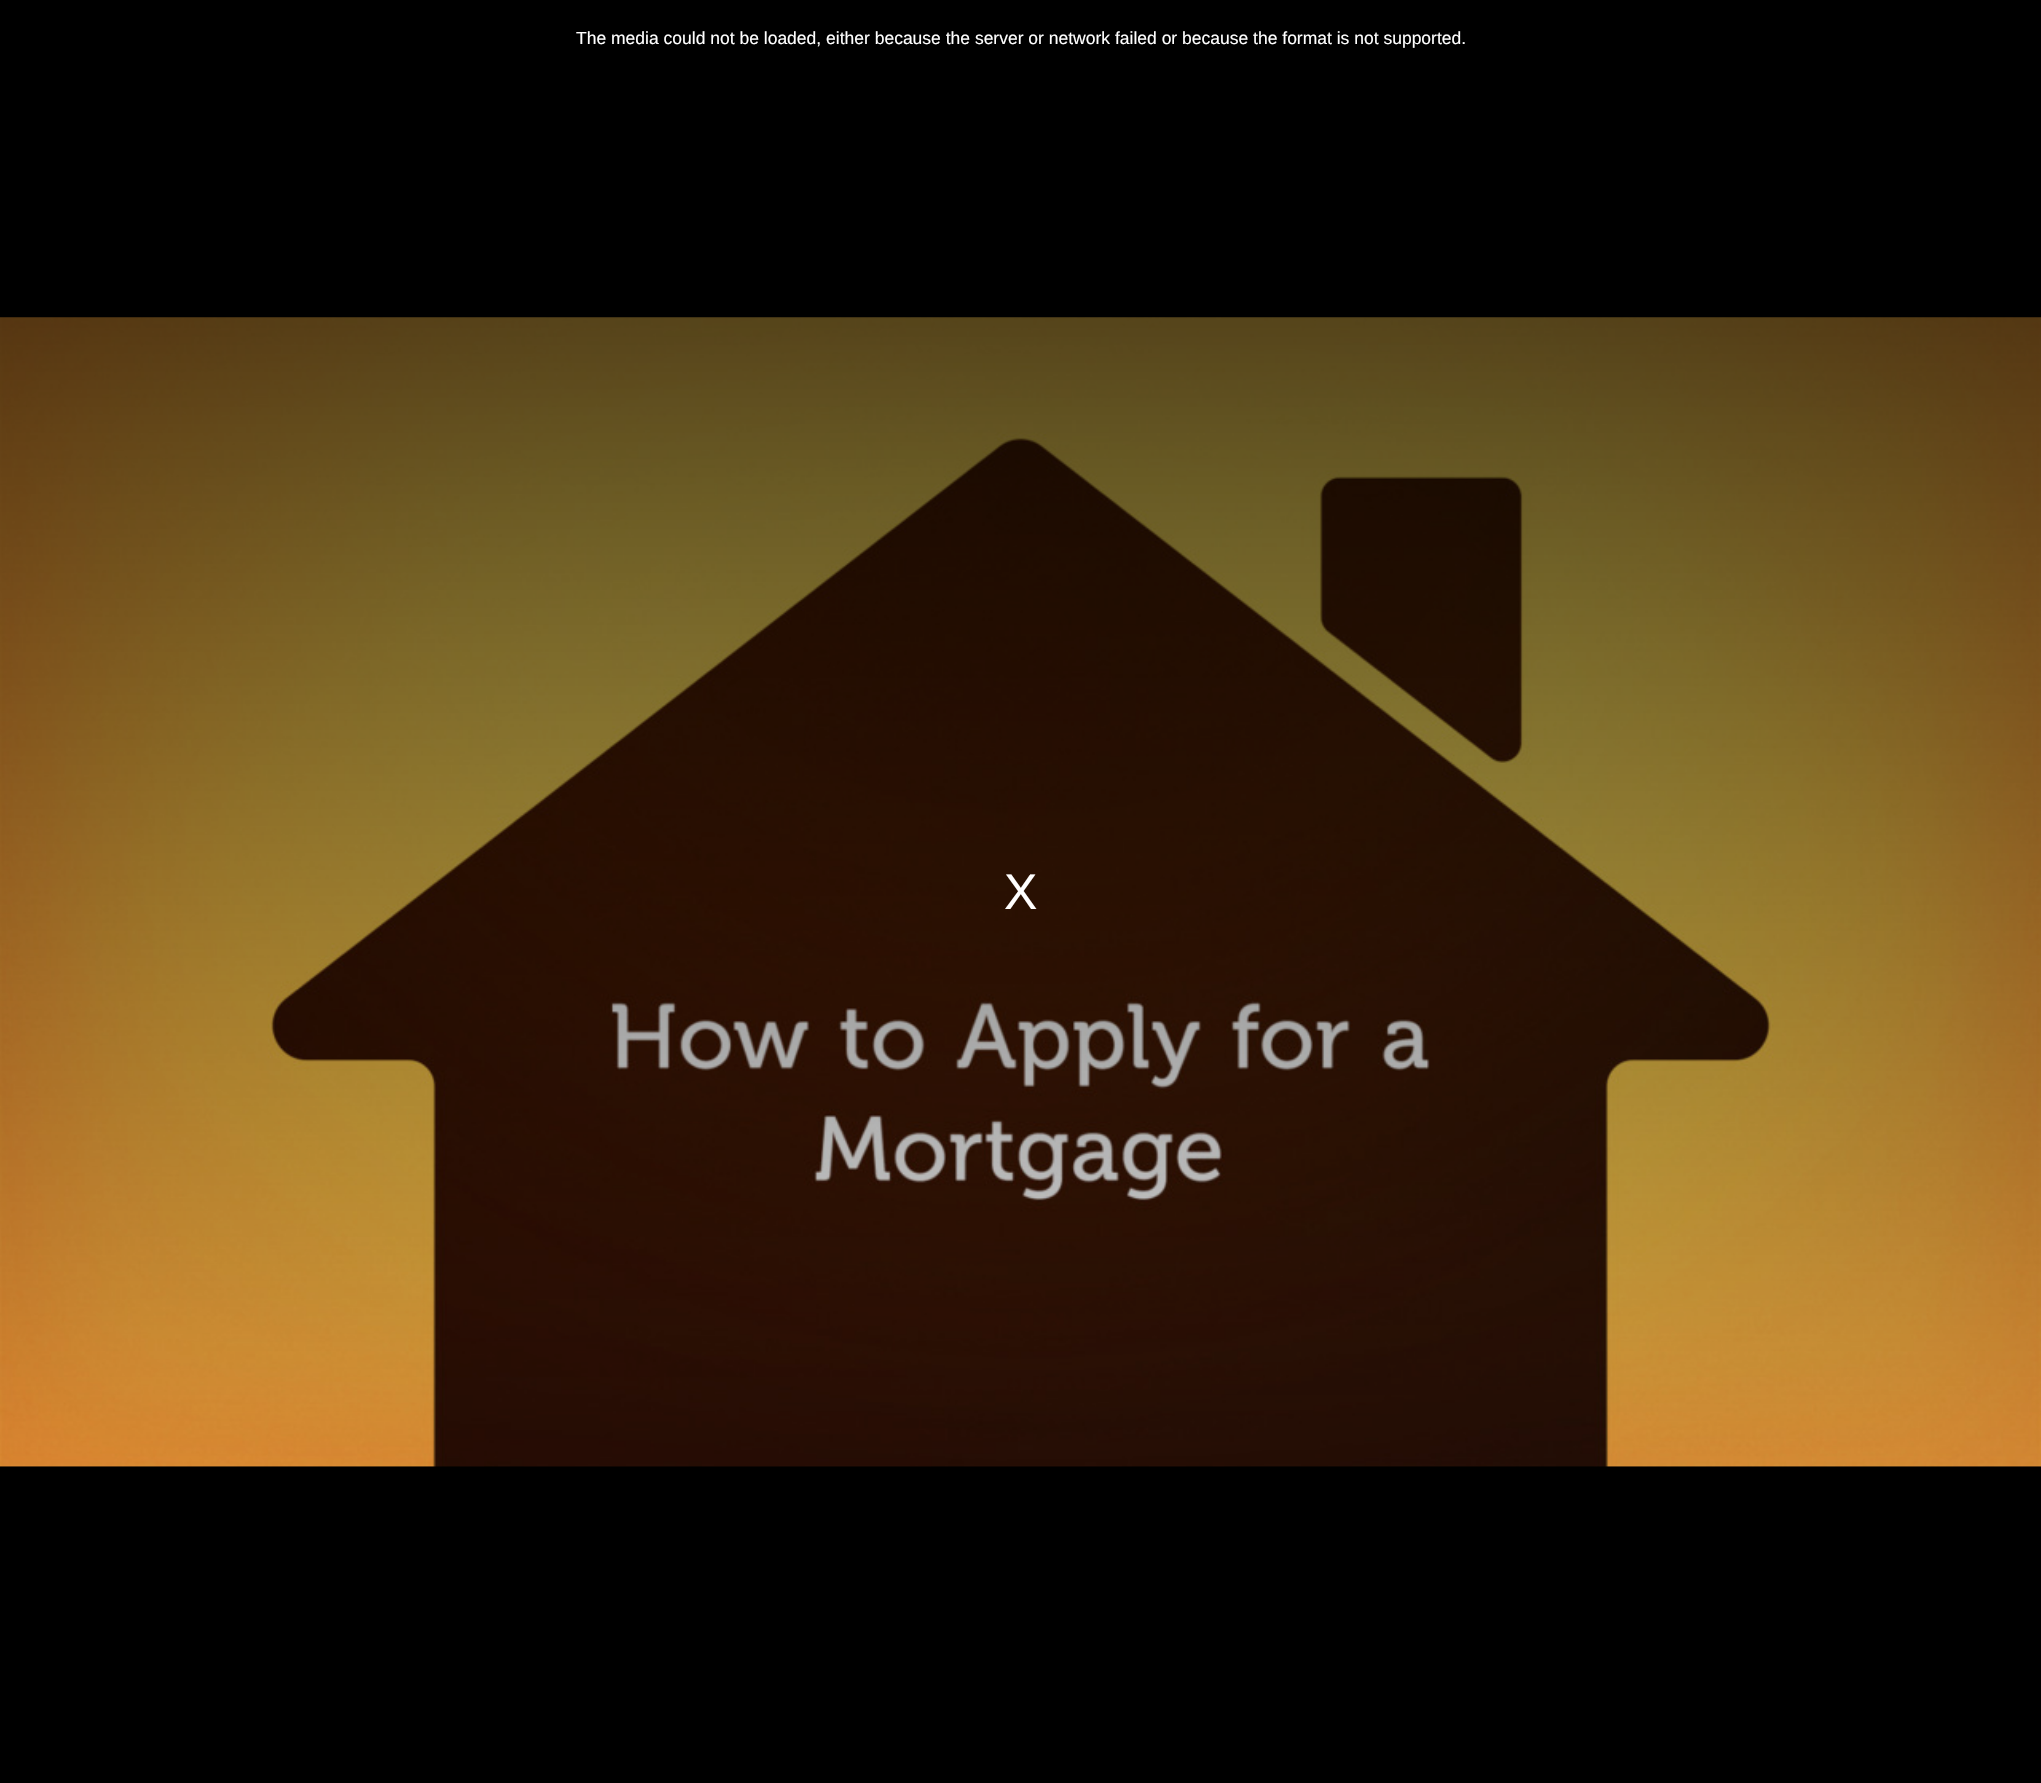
void draw(SkCanvas* canvas) {
	SkPaint paint;
	paint.setAntiAlias(true);
	canvas->clear(0xff000000);
	canvas->drawImageRect(SkImages::DeferredFromEncodedData(SkData::MakeFromFileName("img1.png")), SkRect::MakeXYWH(0, 317, 2041, 1150), SkSamplingOptions());
	canvas->drawImageRect(SkImages::DeferredFromEncodedData(SkData::MakeFromFileName("img2.png")), SkRect::MakeXYWH(0, 317, 2041, 1150), SkSamplingOptions());
	{
		const SkColor colors[] = {0xcc000000, 0x00000000};
		const float stops[] = {0, 1};
		const SkPoint ends[] = {{1021, 0}, {1021, 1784}};
		paint.setShader(SkGradientShader::MakeLinear(ends, colors, stops, 2, SkTileMode::kClamp));
		paint.setAlpha(255);
	}
	canvas->drawRect(SkRect::MakeXYWH(0, 317, 2041, 1150), paint);
	SkFont f1(fontMgr->matchFamilyStyle("Liberation Sans", SkFontStyle::Normal()), 17.5);
	f1.setSubpixel(true);
	paint.setShader(nullptr);
	paint.setColor(0xffffffff);
	canvas->drawString("The media could not be loaded, either because the server or network failed or because the format is not supported.", 576, 44, f1, paint);
	SkFont f2(fontMgr->matchFamilyStyle("Liberation Sans", SkFontStyle::Normal()), 50);
	f2.setSubpixel(true);
	canvas->drawString("X", 1004, 909, f2, paint);
}
